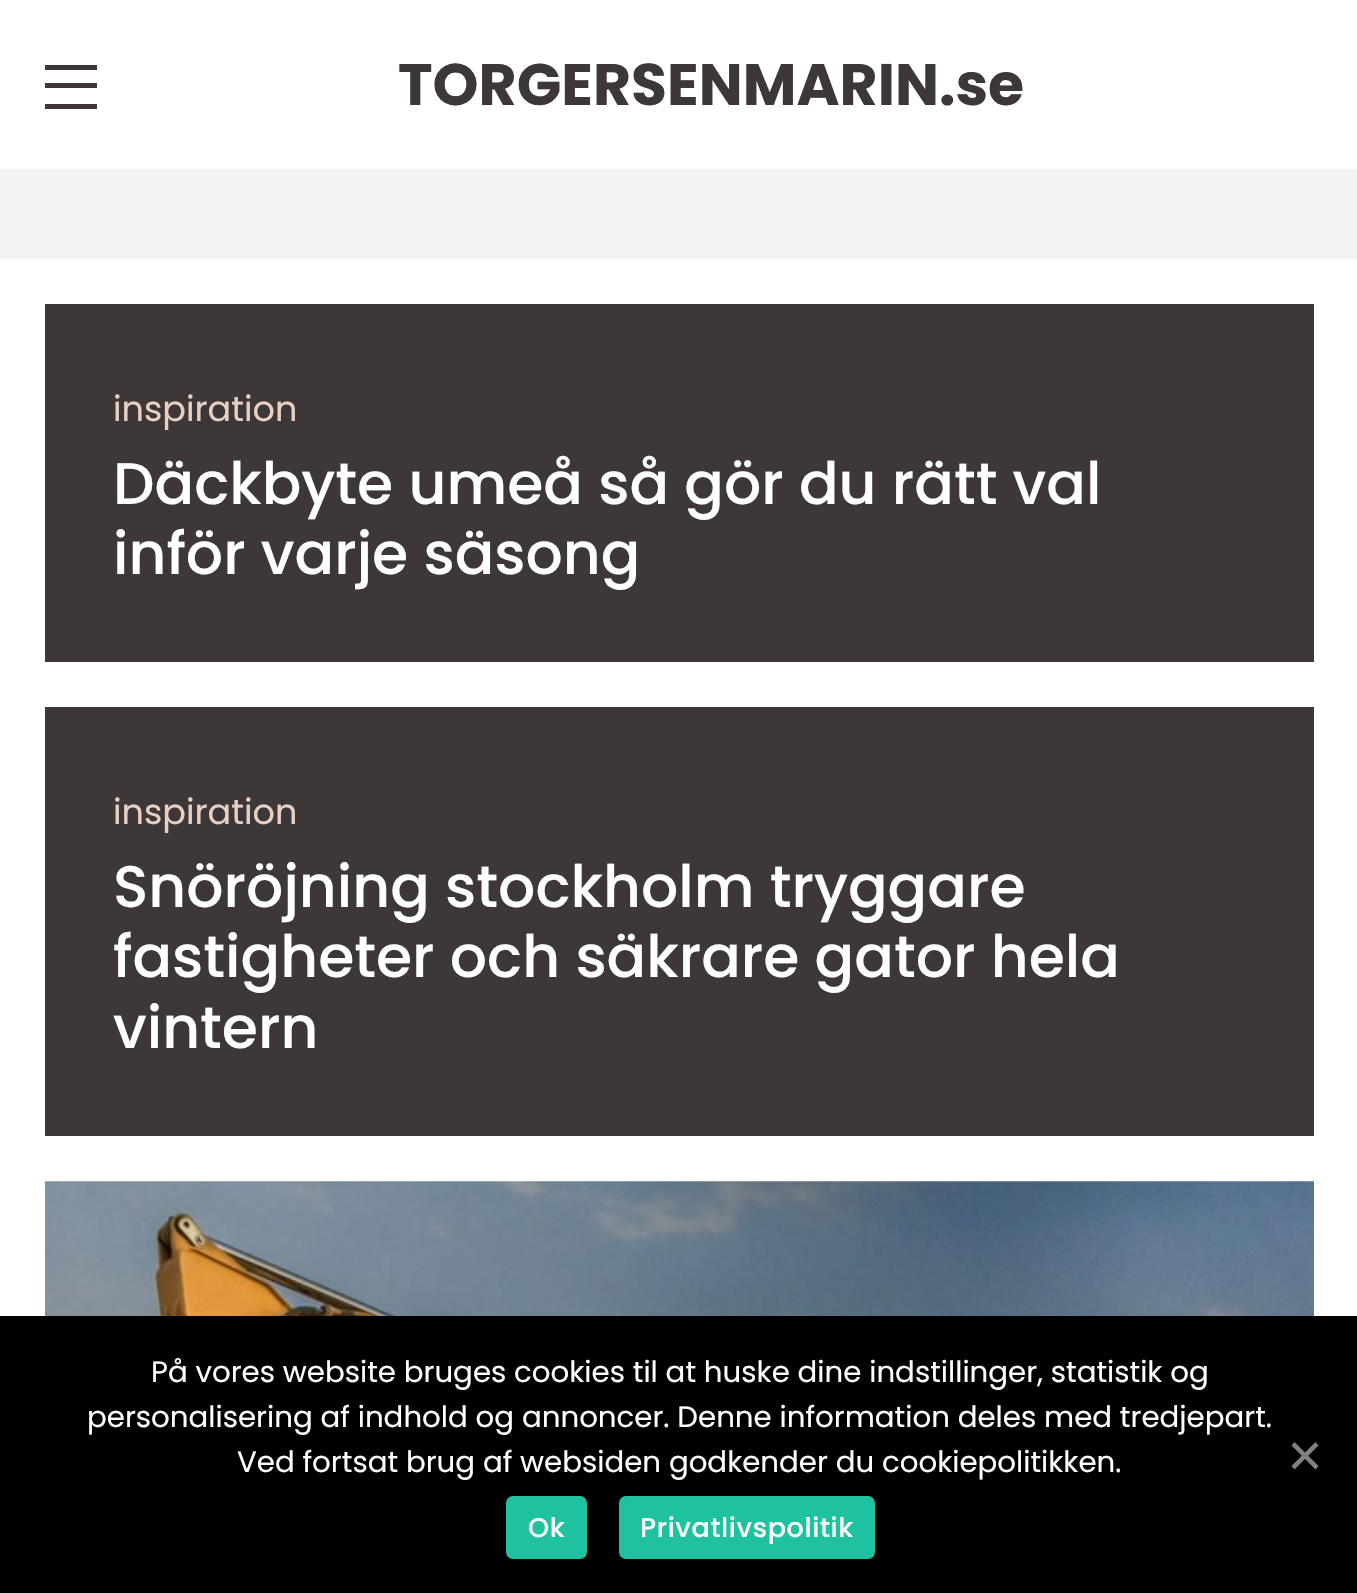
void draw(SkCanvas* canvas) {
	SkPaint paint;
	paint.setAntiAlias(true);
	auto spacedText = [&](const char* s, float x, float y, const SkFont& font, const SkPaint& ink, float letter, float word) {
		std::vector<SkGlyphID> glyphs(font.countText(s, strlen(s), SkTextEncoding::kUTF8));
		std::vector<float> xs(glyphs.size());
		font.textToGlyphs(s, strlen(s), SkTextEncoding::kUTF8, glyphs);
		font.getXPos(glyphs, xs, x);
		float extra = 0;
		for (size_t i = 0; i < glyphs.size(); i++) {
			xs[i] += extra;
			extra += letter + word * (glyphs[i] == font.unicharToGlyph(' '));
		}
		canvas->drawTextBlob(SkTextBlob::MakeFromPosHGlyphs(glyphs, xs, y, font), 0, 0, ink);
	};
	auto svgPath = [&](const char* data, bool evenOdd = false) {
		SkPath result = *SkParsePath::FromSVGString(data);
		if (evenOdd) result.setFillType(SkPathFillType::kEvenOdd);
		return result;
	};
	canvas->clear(0xfff2f2f2);
	paint.setColor(0xffffffff);
	canvas->drawRect(SkRect::MakeXYWH(0, 0, 1357, 169), paint);
	paint.setColor(0xff3d3737);
	canvas->drawRect(SkRect::MakeXYWH(45, 65, 52, 5), paint);
	canvas->drawRect(SkRect::MakeXYWH(45, 83, 52, 5), paint);
	canvas->drawRect(SkRect::MakeXYWH(45, 104, 52, 5), paint);
	SkFont f1(fontMgr->matchFamilyStyle("Poppins", SkFontStyle::Bold()), 58.5);
	f1.setSubpixel(true);
	canvas->drawString("TORGERSENMARIN.se", 398, 105, f1, paint);
	paint.setColor(0xffffffff);
	canvas->drawRect(SkRect::MakeXYWH(0, 259, 1357, 1057), paint);
	paint.setColor(0xff3d3737);
	canvas->drawRect(SkRect::MakeXYWH(45, 304, 1269, 358), paint);
	SkFont f2(fontMgr->matchFamilyStyle("Poppins", SkFontStyle::Normal()), 35);
	f2.setSubpixel(true);
	paint.setColor(0xffe8d0c4);
	canvas->drawString("inspiration", 113, 421, f2, paint);
	SkFont f3(fontMgr->matchFamilyStyle("Poppins", SkFontStyle(500, SkFontStyle::kNormal_Width, SkFontStyle::kUpright_Slant)), 58.5);
	f3.setSubpixel(true);
	paint.setColor(0xffffffff);
	canvas->drawString("Däckbyte umeå så gör du rätt val", 113, 504, f3, paint);
	canvas->drawString("inför varje säsong", 113, 574, f3, paint);
	paint.setColor(0xff3d3737);
	canvas->drawRect(SkRect::MakeXYWH(45, 707, 1269, 429), paint);
	paint.setColor(0xffe8d0c4);
	canvas->drawString("inspiration", 113, 824, f2, paint);
	paint.setColor(0xffffffff);
	canvas->drawString("Snöröjning stockholm tryggare", 113, 907, f3, paint);
	canvas->drawString("fastigheter och säkrare gator hela", 113, 977, f3, paint);
	canvas->drawString("vintern", 113, 1048, f3, paint);
	canvas->drawImageRect(SkImages::DeferredFromEncodedData(SkData::MakeFromFileName("img1.png")), SkRect::MakeXYWH(45, 1181, 1269, 135), SkSamplingOptions());
	paint.setColor(0xff000000);
	canvas->drawRect(SkRect::MakeXYWH(0, 1316, 1357, 277), paint);
	SkFont f4(fontMgr->matchFamilyStyle("Poppins", SkFontStyle::Normal()), 29.25);
	f4.setSubpixel(true);
	paint.setColor(0xffffffff);
	canvas->drawString("På vores website bruges cookies til at huske dine indstillinger, statistik og", 151, 1382, f4, paint);
	canvas->drawString("personalisering af indhold og annoncer. Denne information deles med tredjepart.", 87, 1427, f4, paint);
	canvas->drawString("Ved fortsat brug af websiden godkender du cookiepolitikken.", 237, 1472, f4, paint);
	paint.setColor(0xff808080);
	canvas->drawPath(svgPath("M1315.5 1442L1318.5 1445.5L1294.5 1469.5L1291.5 1466Z"), paint);
	canvas->drawPath(svgPath("M1291.5 1445.5L1294.5 1442L1318.5 1466L1315.5 1469.5Z"), paint);
	paint.setColor(0xff20c19e);
	canvas->drawRoundRect(SkRect::MakeXYWH(506, 1496, 81, 63), 7, 7, paint);
	SkFont f5(fontMgr->matchFamilyStyle("Poppins", SkFontStyle(500, SkFontStyle::kNormal_Width, SkFontStyle::kUpright_Slant)), 27);
	f5.setSubpixel(true);
	paint.setColor(0xffffffff);
	spacedText("Ok", 528, 1537, f5, paint, 0.6, 0);
	paint.setColor(0xff20c19e);
	canvas->drawRoundRect(SkRect::MakeXYWH(619, 1496, 256, 63), 7, 7, paint);
	paint.setColor(0xffffffff);
	spacedText("Privatlivspolitik", 640, 1537, f5, paint, 0.6, 0);
}
